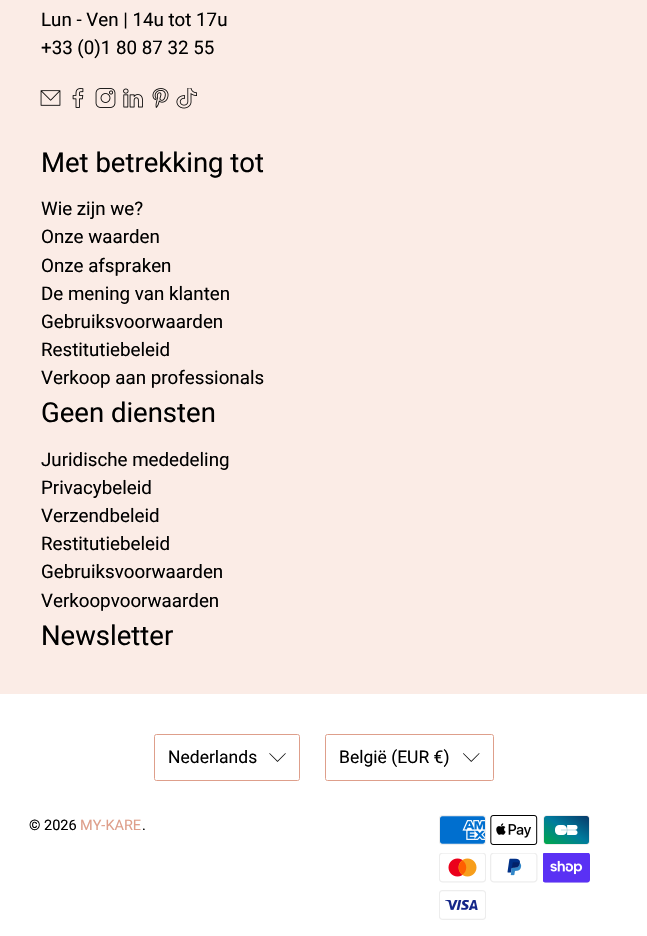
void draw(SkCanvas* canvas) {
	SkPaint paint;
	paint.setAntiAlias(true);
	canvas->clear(0xffffffff);
	paint.setColor(0xfffbece6);
	canvas->drawRect(SkRect::MakeXYWH(0, 0, 647, 694), paint);
	SkFont f1(fontMgr->matchFamilyStyle("Roboto", SkFontStyle::Normal()), 18.75);
	f1.setSubpixel(true);
	paint.setColor(0xff000000);
	canvas->drawString("Lun - Ven | 14u tot 17u", 41, 26, f1, paint);
	canvas->drawString("+33 (0)1 80 87 32 55", 41, 54, f1, paint);
	canvas->drawImageRect(SkImages::DeferredFromEncodedData(SkData::MakeFromFileName("img1.png")), SkRect::MakeXYWH(40, 90, 21, 16), SkSamplingOptions());
	canvas->drawImageRect(SkImages::DeferredFromEncodedData(SkData::MakeFromFileName("img2.png")), SkRect::MakeXYWH(72, 88, 12, 20), SkSamplingOptions());
	canvas->drawImageRect(SkImages::DeferredFromEncodedData(SkData::MakeFromFileName("img3.png")), SkRect::MakeXYWH(95, 88, 21, 20), SkSamplingOptions());
	canvas->drawImageRect(SkImages::DeferredFromEncodedData(SkData::MakeFromFileName("img4.png")), SkRect::MakeXYWH(123, 88, 20, 20), SkSamplingOptions());
	canvas->drawImageRect(SkImages::DeferredFromEncodedData(SkData::MakeFromFileName("img5.png")), SkRect::MakeXYWH(152, 88, 17, 20), SkSamplingOptions());
	canvas->drawImageRect(SkImages::DeferredFromEncodedData(SkData::MakeFromFileName("img6.png")), SkRect::MakeXYWH(176, 88, 21, 21), SkSamplingOptions());
	SkFont f2(fontMgr->matchFamilyStyle("Roboto", SkFontStyle::Normal()), 27.5);
	f2.setSubpixel(true);
	canvas->drawString("Met betrekking tot", 41, 172, f2, paint);
	canvas->drawString("Wie zijn we?", 41, 215, f1, paint);
	canvas->drawString("Onze waarden", 41, 243, f1, paint);
	canvas->drawString("Onze afspraken", 41, 272, f1, paint);
	canvas->drawString("De mening van klanten", 41, 300, f1, paint);
	canvas->drawString("Gebruiksvoorwaarden", 41, 328, f1, paint);
	canvas->drawString("Restitutiebeleid", 41, 356, f1, paint);
	canvas->drawString("Verkoop aan professionals", 41, 384, f1, paint);
	canvas->drawString("Geen diensten", 41, 422, f2, paint);
	canvas->drawString("Juridische mededeling", 41, 466, f1, paint);
	canvas->drawString("Privacybeleid", 41, 494, f1, paint);
	canvas->drawString("Verzendbeleid", 41, 522, f1, paint);
	canvas->drawString("Restitutiebeleid", 41, 550, f1, paint);
	canvas->drawString("Gebruiksvoorwaarden", 41, 578, f1, paint);
	canvas->drawString("Verkoopvoorwaarden", 41, 607, f1, paint);
	canvas->drawString("Newsletter", 41, 645, f2, paint);
	paint.setStroke(true);
	paint.setStrokeWidth(1);
	paint.setColor(0xffde9f8b);
	canvas->drawRoundRect(SkRect::MakeXYWH(154.5, 734.5, 145, 46), 2, 2, paint);
	paint.setStroke(false);
	paint.setColor(0xffffffff);
	canvas->drawRoundRect(SkRect::MakeXYWH(155, 735, 144, 45), 2.5, 2.5, paint);
	SkFont f3(fontMgr->matchFamilyStyle("Roboto", SkFontStyle::Normal()), 17.5);
	f3.setSubpixel(true);
	paint.setColor(0xff000000);
	canvas->drawString("Nederlands", 168, 763, f3, paint);
	canvas->drawImageRect(SkImages::DeferredFromEncodedData(SkData::MakeFromFileName("img7.png")), SkRect::MakeXYWH(269, 753, 17, 9), SkSamplingOptions());
	paint.setStroke(true);
	paint.setColor(0xffde9f8b);
	canvas->drawRoundRect(SkRect::MakeXYWH(325.5, 734.5, 168, 46), 2, 2, paint);
	paint.setStroke(false);
	paint.setColor(0xffffffff);
	canvas->drawRoundRect(SkRect::MakeXYWH(326, 735, 167, 45), 2.5, 2.5, paint);
	paint.setColor(0xff000000);
	canvas->drawString("België (EUR €)", 339, 763, f3, paint);
	canvas->drawImageRect(SkImages::DeferredFromEncodedData(SkData::MakeFromFileName("img8.png")), SkRect::MakeXYWH(463, 753, 17, 9), SkSamplingOptions());
	SkFont f4(fontMgr->matchFamilyStyle("Roboto", SkFontStyle::Normal()), 14.5);
	f4.setSubpixel(true);
	canvas->drawString("© 2026", 29, 830, f4, paint);
	paint.setColor(0xffde9f8b);
	canvas->drawString("MY-KARE", 80, 830, f4, paint);
	paint.setColor(0xff000000);
	canvas->drawString(".", 142, 830, f4, paint);
	canvas->drawImageRect(SkImages::DeferredFromEncodedData(SkData::MakeFromFileName("img9.png")), SkRect::MakeXYWH(439, 815, 47, 30), SkSamplingOptions());
	canvas->drawImageRect(SkImages::DeferredFromEncodedData(SkData::MakeFromFileName("img10.png")), SkRect::MakeXYWH(490, 815, 48, 30), SkSamplingOptions());
	canvas->drawImageRect(SkImages::DeferredFromEncodedData(SkData::MakeFromFileName("img11.png")), SkRect::MakeXYWH(543, 815, 47, 30), SkSamplingOptions());
	canvas->drawImageRect(SkImages::DeferredFromEncodedData(SkData::MakeFromFileName("img12.png")), SkRect::MakeXYWH(439, 853, 47, 30), SkSamplingOptions());
	canvas->drawImageRect(SkImages::DeferredFromEncodedData(SkData::MakeFromFileName("img13.png")), SkRect::MakeXYWH(490, 853, 48, 30), SkSamplingOptions());
	canvas->drawImageRect(SkImages::DeferredFromEncodedData(SkData::MakeFromFileName("img14.png")), SkRect::MakeXYWH(543, 853, 47, 30), SkSamplingOptions());
	canvas->drawImageRect(SkImages::DeferredFromEncodedData(SkData::MakeFromFileName("img15.png")), SkRect::MakeXYWH(439, 890, 47, 30), SkSamplingOptions());
}
